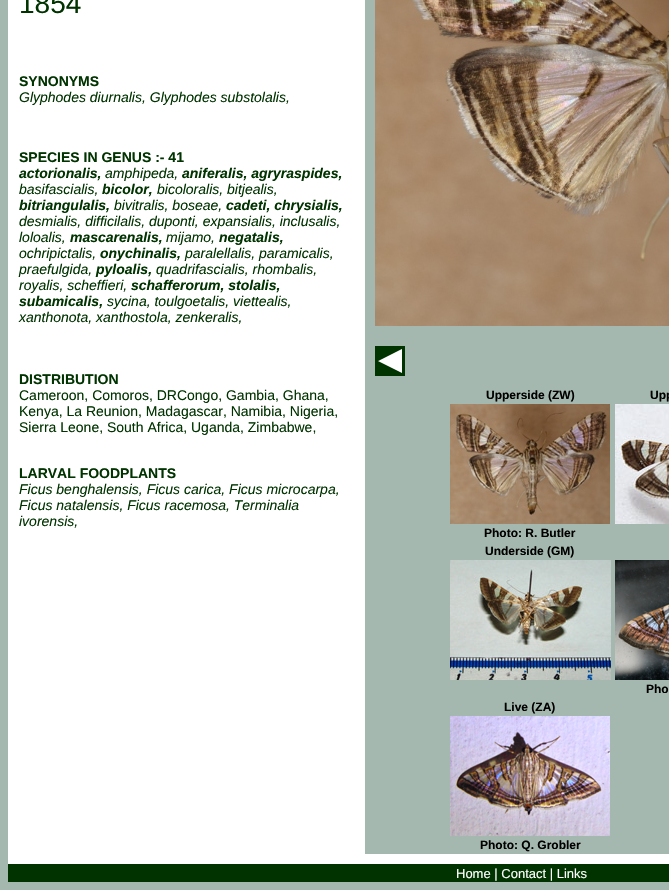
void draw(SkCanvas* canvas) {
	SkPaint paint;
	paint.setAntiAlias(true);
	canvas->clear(0xffa4b8af);
	paint.setColor(0xffffffff);
	canvas->drawRect(SkRect::MakeXYWH(8, 0, 661, 864), paint);
	SkFont f1(fontMgr->matchFamilyStyle("Liberation Sans", SkFontStyle::Normal()), 28);
	f1.setSubpixel(true);
	paint.setColor(0xff003300);
	canvas->drawString("1854", 19, 13, f1, paint);
	SkFont f2(fontMgr->matchFamilyStyle("Liberation Sans", SkFontStyle::Bold()), 14);
	f2.setSubpixel(true);
	canvas->drawString("SYNONYMS", 19, 86, f2, paint);
	SkFont f3(fontMgr->matchFamilyStyle("Liberation Sans", SkFontStyle::Italic()), 14);
	f3.setSubpixel(true);
	canvas->drawString("Glyphodes diurnalis, Glyphodes substolalis,", 19, 102, f3, paint);
	canvas->drawString("SPECIES IN GENUS :- 41", 19, 162, f2, paint);
	SkFont f4(fontMgr->matchFamilyStyle("Liberation Sans", SkFontStyle::BoldItalic()), 14);
	f4.setSubpixel(true);
	canvas->drawString("actorionalis,", 19, 178, f4, paint);
	canvas->drawString("amphipeda,", 105, 178, f3, paint);
	canvas->drawString("aniferalis, agryraspides,", 182, 178, f4, paint);
	canvas->drawString("basifascialis,", 19, 194, f3, paint);
	canvas->drawString("bicolor,", 102, 194, f4, paint);
	canvas->drawString("bicoloralis, bitjealis,", 157, 194, f3, paint);
	canvas->drawString("bitriangulalis,", 19, 210, f4, paint);
	canvas->drawString("bivitralis, boseae,", 114, 210, f3, paint);
	canvas->drawString("cadeti, chrysialis,", 226, 210, f4, paint);
	canvas->drawString("desmialis, difficilalis, duponti, expansialis, inclusalis,", 19, 226, f3, paint);
	canvas->drawString("loloalis,", 19, 242, f3, paint);
	canvas->drawString("mascarenalis,", 70, 242, f4, paint);
	canvas->drawString("mijamo,", 166, 242, f3, paint);
	canvas->drawString("negatalis,", 219, 242, f4, paint);
	canvas->drawString("ochripictalis,", 19, 258, f3, paint);
	canvas->drawString("onychinalis,", 100, 258, f4, paint);
	canvas->drawString("paralellalis, paramicalis,", 185, 258, f3, paint);
	canvas->drawString("praefulgida,", 19, 274, f3, paint);
	canvas->drawString("pyloalis,", 96, 274, f4, paint);
	canvas->drawString("quadrifascialis, rhombalis,", 156, 274, f3, paint);
	canvas->drawString("royalis, scheffieri,", 19, 290, f3, paint);
	canvas->drawString("schafferorum, stolalis,", 131, 290, f4, paint);
	canvas->drawString("subamicalis,", 19, 306, f4, paint);
	canvas->drawString("sycina, toulgoetalis, viettealis,", 107, 306, f3, paint);
	canvas->drawString("xanthonota, xanthostola, zenkeralis,", 19, 322, f3, paint);
	canvas->drawString("DISTRIBUTION", 19, 384, f2, paint);
	SkFont f5(fontMgr->matchFamilyStyle("Liberation Sans", SkFontStyle::Normal()), 14);
	f5.setSubpixel(true);
	canvas->drawString("Cameroon, Comoros, DRCongo, Gambia, Ghana,", 19, 400, f5, paint);
	canvas->drawString("Kenya, La Reunion, Madagascar, Namibia, Nigeria,", 19, 416, f5, paint);
	canvas->drawString("Sierra Leone, South Africa, Uganda, Zimbabwe,", 19, 432, f5, paint);
	canvas->drawString("LARVAL FOODPLANTS", 19, 478, f2, paint);
	canvas->drawString("Ficus benghalensis, Ficus carica, Ficus microcarpa,", 19, 494, f3, paint);
	canvas->drawString("Ficus natalensis, Ficus racemosa, Terminalia", 19, 510, f3, paint);
	canvas->drawString("ivorensis,", 19, 526, f3, paint);
	paint.setColor(0xffa4b8af);
	canvas->drawRect(SkRect::MakeXYWH(365, 0, 304, 854), paint);
	canvas->drawImageRect(SkImages::DeferredFromEncodedData(SkData::MakeFromFileName("img1.png")), SkRect::MakeXYWH(375, 0, 294, 326), SkSamplingOptions());
	canvas->drawImageRect(SkImages::DeferredFromEncodedData(SkData::MakeFromFileName("img2.png")), SkRect::MakeXYWH(375, 346, 30, 30), SkSamplingOptions());
	SkFont f6(fontMgr->matchFamilyStyle("Liberation Sans", SkFontStyle::Bold()), 12);
	f6.setSubpixel(true);
	paint.setColor(0xff000000);
	canvas->drawString("Upperside (ZW)", 486, 399, f6, paint);
	canvas->drawString("Upp", 650, 399, f6, paint);
	canvas->drawImageRect(SkImages::DeferredFromEncodedData(SkData::MakeFromFileName("img3.png")), SkRect::MakeXYWH(450, 404, 160, 120), SkSamplingOptions());
	canvas->drawImageRect(SkImages::DeferredFromEncodedData(SkData::MakeFromFileName("img4.png")), SkRect::MakeXYWH(615, 404, 54, 120), SkSamplingOptions());
	canvas->drawString("Photo: R. Butler", 484, 537, f6, paint);
	canvas->drawString("Underside (GM)", 485, 555, f6, paint);
	canvas->drawImageRect(SkImages::DeferredFromEncodedData(SkData::MakeFromFileName("img5.png")), SkRect::MakeXYWH(450, 560, 161, 120), SkSamplingOptions());
	canvas->drawImageRect(SkImages::DeferredFromEncodedData(SkData::MakeFromFileName("img6.png")), SkRect::MakeXYWH(615, 560, 54, 120), SkSamplingOptions());
	canvas->drawString("Pho", 646, 693, f6, paint);
	canvas->drawString("Live (ZA)", 504, 711, f6, paint);
	canvas->drawImageRect(SkImages::DeferredFromEncodedData(SkData::MakeFromFileName("img7.png")), SkRect::MakeXYWH(450, 716, 160, 120), SkSamplingOptions());
	canvas->drawString("Photo: Q. Grobler", 480, 849, f6, paint);
	paint.setColor(0xff003300);
	canvas->drawRect(SkRect::MakeXYWH(8, 864, 661, 18), paint);
	SkFont f7(fontMgr->matchFamilyStyle("Liberation Sans", SkFontStyle::Normal()), 13);
	f7.setSubpixel(true);
	paint.setColor(0xffffffff);
	canvas->drawString("Home | Contact | Links", 456, 878, f7, paint);
}
